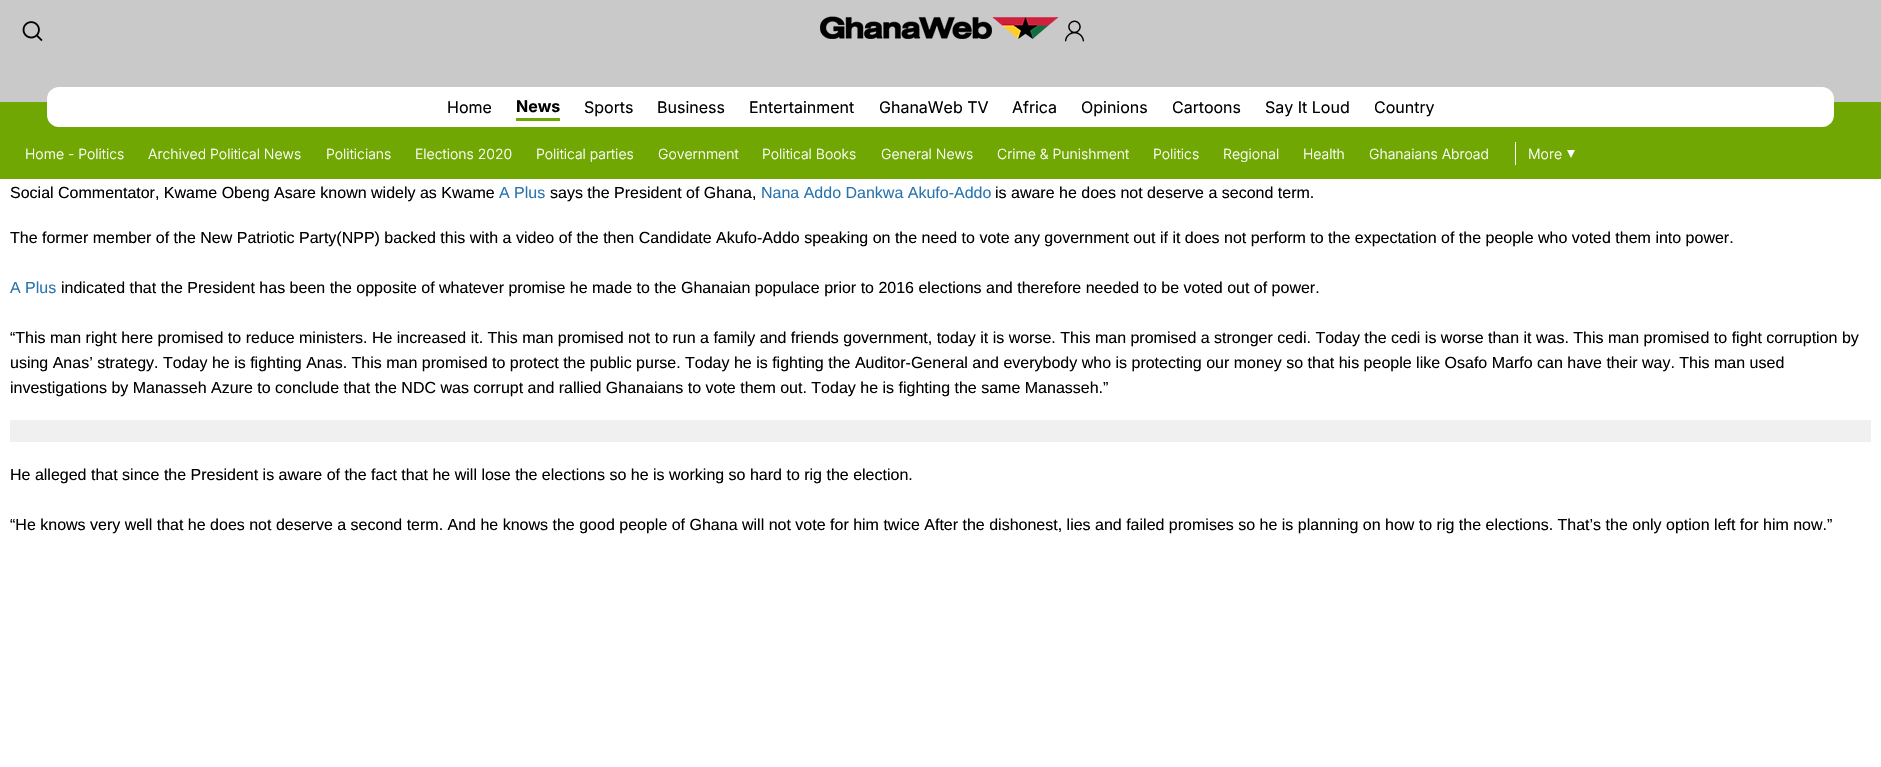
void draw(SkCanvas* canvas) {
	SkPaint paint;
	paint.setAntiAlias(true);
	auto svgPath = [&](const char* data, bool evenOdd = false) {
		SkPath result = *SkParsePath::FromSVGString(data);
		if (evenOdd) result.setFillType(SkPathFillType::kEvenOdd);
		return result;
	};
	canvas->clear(0xffffffff);
	paint.setColor(0xffc9c9c9);
	canvas->drawRect(SkRect::MakeXYWH(0, 0, 1881, 102), paint);
	canvas->drawImageRect(SkImages::DeferredFromEncodedData(SkData::MakeFromFileName("img1.png")), SkRect::MakeXYWH(22, 21, 21, 20), SkSamplingOptions());
	canvas->drawImageRect(SkImages::DeferredFromEncodedData(SkData::MakeFromFileName("img2.png")), SkRect::MakeXYWH(820, 16, 239, 23), SkSamplingOptions());
	canvas->drawImageRect(SkImages::DeferredFromEncodedData(SkData::MakeFromFileName("img3.png")), SkRect::MakeXYWH(1065, 20, 20, 22), SkSamplingOptions());
	paint.setColor(0xff70a703);
	canvas->drawRect(SkRect::MakeXYWH(0, 102, 1881, 77), paint);
	paint.setColor(0xffffffff);
	canvas->drawRoundRect(SkRect::MakeXYWH(47, 87, 1787, 40), 12, 12, paint);
	SkFont f1(fontMgr->matchFamilyStyle("Inter", SkFontStyle::Normal()), 16);
	f1.setSubpixel(true);
	paint.setColor(0xff000000);
	canvas->drawString("Home", 447, 113, f1, paint);
	paint.setColor(0xff70a703);
	canvas->drawRect(SkRect::MakeXYWH(516, 118, 44, 3), paint);
	SkFont f2(fontMgr->matchFamilyStyle("Inter", SkFontStyle::Bold()), 16);
	f2.setSubpixel(true);
	paint.setColor(0xff000000);
	canvas->drawString("News", 516, 112, f2, paint);
	canvas->drawString("Sports", 584, 113, f1, paint);
	canvas->drawString("Business", 657, 113, f1, paint);
	canvas->drawString("Entertainment", 749, 113, f1, paint);
	canvas->drawString("GhanaWeb TV", 879, 113, f1, paint);
	canvas->drawString("Africa", 1012, 113, f1, paint);
	canvas->drawString("Opinions", 1081, 113, f1, paint);
	canvas->drawString("Cartoons", 1172, 113, f1, paint);
	canvas->drawString("Say It Loud", 1265, 113, f1, paint);
	canvas->drawString("Country", 1374, 113, f1, paint);
	SkFont f3(fontMgr->matchFamilyStyle("Inter", SkFontStyle(300, SkFontStyle::kNormal_Width, SkFontStyle::kUpright_Slant)), 14);
	f3.setSubpixel(true);
	paint.setColor(0xffffffff);
	canvas->drawString("Home - Politics", 25, 159, f3, paint);
	canvas->drawString("Archived Political News", 148, 159, f3, paint);
	canvas->drawString("Politicians", 326, 159, f3, paint);
	canvas->drawString("Elections 2020", 415, 159, f3, paint);
	canvas->drawString("Political parties", 536, 159, f3, paint);
	canvas->drawString("Government", 658, 159, f3, paint);
	canvas->drawString("Political Books", 762, 159, f3, paint);
	canvas->drawString("General News", 881, 159, f3, paint);
	canvas->drawString("Crime & Punishment", 997, 159, f3, paint);
	canvas->drawString("Politics", 1153, 159, f3, paint);
	canvas->drawString("Regional", 1223, 159, f3, paint);
	canvas->drawString("Health", 1303, 159, f3, paint);
	canvas->drawString("Ghanaians Abroad", 1369, 159, f3, paint);
	canvas->drawRect(SkRect::MakeXYWH(1515, 142, 1, 23), paint);
	canvas->drawString("More", 1528, 159, f3, paint);
	canvas->drawPath(svgPath("M1567 150L1571 158L1575 150Z"), paint);
	SkFont f4(fontMgr->matchFamilyStyle("Liberation Sans", SkFontStyle::Normal()), 16);
	f4.setSubpixel(true);
	paint.setColor(0xff000000);
	canvas->drawString("Social Commentator, Kwame Obeng Asare known widely as Kwame", 10, 198, f4, paint);
	paint.setColor(0xff2a74ae);
	canvas->drawString("A Plus", 499, 198, f4, paint);
	paint.setColor(0xff000000);
	canvas->drawString("says the President of Ghana,", 550, 198, f4, paint);
	paint.setColor(0xff2a74ae);
	canvas->drawString("Nana Addo Dankwa Akufo-Addo", 761, 198, f4, paint);
	paint.setColor(0xff000000);
	canvas->drawString("is aware he does not deserve a second term.", 995, 198, f4, paint);
	canvas->drawString("The former member of the New Patriotic Party(NPP) backed this with a video of the then Candidate Akufo-Addo speaking on the need to vote any government out if it does not perform to the expectation of the people who voted them into power.", 10, 243, f4, paint);
	paint.setColor(0xff2a74ae);
	canvas->drawString("A Plus", 10, 293, f4, paint);
	paint.setColor(0xff000000);
	canvas->drawString("indicated that the President has been the opposite of whatever promise he made to the Ghanaian populace prior to 2016 elections and therefore needed to be voted out of power.", 61, 293, f4, paint);
	canvas->drawString("“This man right here promised to reduce ministers. He increased it. This man promised not to run a family and friends government, today it is worse. This man promised a stronger cedi. Today the cedi is worse than it was. This man promised to fight corruption by", 10, 343, f4, paint);
	canvas->drawString("using Anas’ strategy. Today he is fighting Anas. This man promised to protect the public purse. Today he is fighting the Auditor-General and everybody who is protecting our money so that his people like Osafo Marfo can have their way. This man used", 10, 368, f4, paint);
	canvas->drawString("investigations by Manasseh Azure to conclude that the NDC was corrupt and rallied Ghanaians to vote them out. Today he is fighting the same Manasseh.”", 10, 393, f4, paint);
	paint.setColor(0xfff0f0f0);
	canvas->drawRect(SkRect::MakeXYWH(10, 420, 1861, 22), paint);
	paint.setColor(0xff000000);
	canvas->drawString("He alleged that since the President is aware of the fact that he will lose the elections so he is working so hard to rig the election.", 10, 480, f4, paint);
	canvas->drawString("“He knows very well that he does not deserve a second term. And he knows the good people of Ghana will not vote for him twice After the dishonest, lies and failed promises so he is planning on how to rig the elections. That’s the only option left for him now.”", 10, 530, f4, paint);
}
